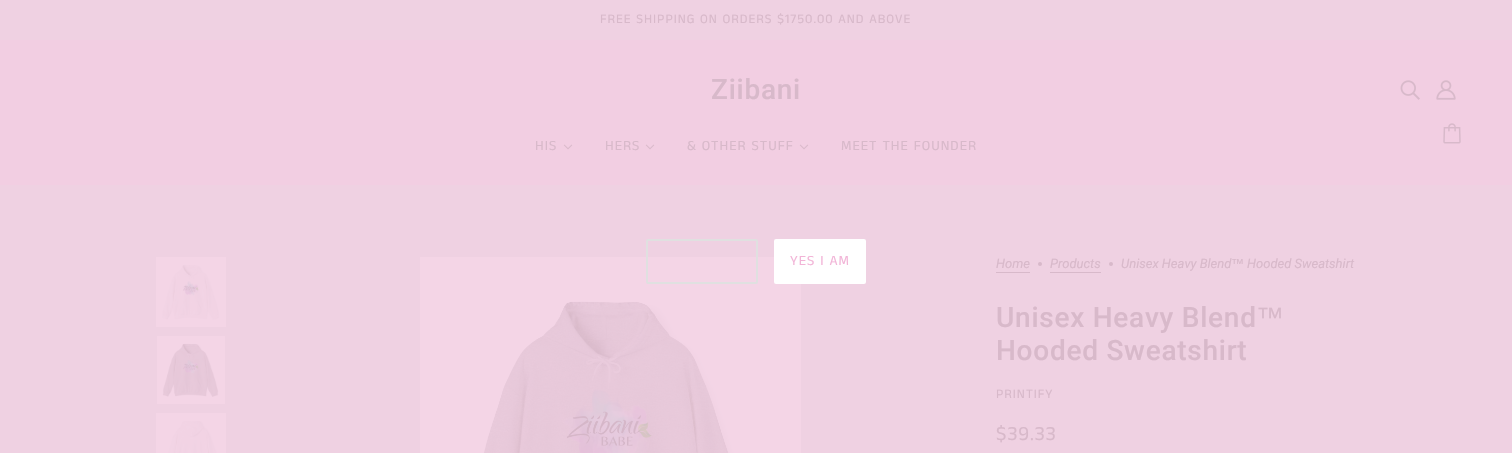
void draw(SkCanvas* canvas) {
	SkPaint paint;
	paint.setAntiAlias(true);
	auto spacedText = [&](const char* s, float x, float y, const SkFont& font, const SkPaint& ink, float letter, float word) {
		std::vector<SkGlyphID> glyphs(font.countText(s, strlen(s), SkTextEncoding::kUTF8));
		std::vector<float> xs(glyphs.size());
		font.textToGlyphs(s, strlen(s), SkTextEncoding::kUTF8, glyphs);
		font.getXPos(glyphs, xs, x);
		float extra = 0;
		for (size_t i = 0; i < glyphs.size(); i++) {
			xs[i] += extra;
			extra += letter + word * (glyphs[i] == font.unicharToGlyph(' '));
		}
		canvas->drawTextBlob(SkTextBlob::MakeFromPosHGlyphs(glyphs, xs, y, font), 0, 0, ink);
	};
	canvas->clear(0xffefd1e2);
	SkFont f1(fontMgr->matchFamilyStyle("Anek Tamil", SkFontStyle::Normal()), 13);
	f1.setSubpixel(true);
	paint.setColor(0xffd8b9ca);
	spacedText("FREE SHIPPING ON ORDERS $1750.00 AND ABOVE", 600, 23, f1, paint, 1, 0);
	paint.setColor(0xfff2cee2);
	canvas->drawRect(SkRect::MakeXYWH(0, 40, 1512, 145), paint);
	SkFont f2(fontMgr->matchFamilyStyle("Roboto", SkFontStyle(500, SkFontStyle::kNormal_Width, SkFontStyle::kUpright_Slant)), 28);
	f2.setSubpixel(true);
	paint.setColor(0xffd8b9ca);
	spacedText("Ziibani", 711, 99, f2, paint, 0.75, 0);
	canvas->drawImageRect(SkImages::DeferredFromEncodedData(SkData::MakeFromFileName("img1.png")), SkRect::MakeXYWH(1400, 80, 20, 20), SkSamplingOptions());
	canvas->drawImageRect(SkImages::DeferredFromEncodedData(SkData::MakeFromFileName("img2.png")), SkRect::MakeXYWH(1436, 80, 20, 20), SkSamplingOptions());
	canvas->drawImageRect(SkImages::DeferredFromEncodedData(SkData::MakeFromFileName("img3.png")), SkRect::MakeXYWH(1443, 123, 18, 21), SkSamplingOptions());
	SkFont f3(fontMgr->matchFamilyStyle("Anek Tamil", SkFontStyle::Normal()), 14);
	f3.setSubpixel(true);
	spacedText("HIS", 535, 150, f3, paint, 1, 0);
	canvas->drawImageRect(SkImages::DeferredFromEncodedData(SkData::MakeFromFileName("img4.png")), SkRect::MakeXYWH(563, 144, 10, 6), SkSamplingOptions());
	spacedText("HERS", 605, 150, f3, paint, 1, 0);
	canvas->drawImageRect(SkImages::DeferredFromEncodedData(SkData::MakeFromFileName("img4.png")), SkRect::MakeXYWH(645, 144, 10, 6), SkSamplingOptions());
	spacedText("& OTHER STUFF", 687, 150, f3, paint, 1, 0);
	canvas->drawImageRect(SkImages::DeferredFromEncodedData(SkData::MakeFromFileName("img4.png")), SkRect::MakeXYWH(799, 144, 10, 6), SkSamplingOptions());
	spacedText("MEET THE FOUNDER", 841, 150, f3, paint, 1, 0);
	canvas->drawImageRect(SkImages::DeferredFromEncodedData(SkData::MakeFromFileName("img8.png")), SkRect::MakeXYWH(420, 257, 381, 196), SkSamplingOptions());
	paint.setStroke(true);
	paint.setStrokeWidth(2);
	paint.setColor(0xffe0e0e0);
	canvas->drawRoundRect(SkRect::MakeXYWH(647, 240, 110, 43), 1, 1, paint);
	paint.setStroke(false);
	paint.setColor(0xffffffff);
	canvas->drawRoundRect(SkRect::MakeXYWH(774, 239, 92, 45), 2, 2, paint);
	paint.setColor(0xfff2b4d7);
	spacedText("YES I AM", 790, 265, f3, paint, 1, 0);
	canvas->drawImageRect(SkImages::DeferredFromEncodedData(SkData::MakeFromFileName("img5.png")), SkRect::MakeXYWH(156, 257, 70, 70), SkSamplingOptions());
	canvas->drawImageRect(SkImages::DeferredFromEncodedData(SkData::MakeFromFileName("img6.png")), SkRect::MakeXYWH(157, 336, 68, 68), SkSamplingOptions());
	canvas->drawImageRect(SkImages::DeferredFromEncodedData(SkData::MakeFromFileName("img7.png")), SkRect::MakeXYWH(156, 413, 70, 40), SkSamplingOptions());
	SkFont f4(fontMgr->matchFamilyStyle("Roboto", SkFontStyle::Italic()), 13);
	f4.setSubpixel(true);
	paint.setColor(0xffd8b9ca);
	canvas->drawString("Home", 996, 268, f4, paint);
	canvas->drawRect(SkRect::MakeXYWH(996, 272, 34, 1), paint);
	canvas->drawCircle(1040, 264, 2, paint);
	canvas->drawString("Products", 1050, 268, f4, paint);
	canvas->drawRect(SkRect::MakeXYWH(1050, 272, 51, 1), paint);
	canvas->drawCircle(1111, 264, 2, paint);
	canvas->drawString("Unisex Heavy Blend", 1121, 268, f4, paint);
	SkFont f5(fontMgr->matchFamilyStyle("Liberation Sans", SkFontStyle::Italic()), 13);
	f5.setSubpixel(true);
	canvas->drawString("™", 1231, 268, f5, paint);
	canvas->drawString("Hooded Sweatshirt", 1247, 268, f4, paint);
	spacedText("Unisex Heavy Blend", 996, 327, f2, paint, 0.75, 0);
	SkFont f6(fontMgr->matchFamilyStyle("Liberation Sans", SkFontStyle::Normal()), 28);
	f6.setSubpixel(true);
	spacedText("™", 1256, 327, f6, paint, 0.75, 0);
	spacedText("Hooded Sweatshirt", 996, 360, f2, paint, 0.75, 0);
	spacedText("PRINTIFY", 996, 398, f1, paint, 1, 0);
	SkFont f7(fontMgr->matchFamilyStyle("Anek Tamil", SkFontStyle::Normal()), 20);
	f7.setSubpixel(true);
	spacedText("$39.33", 996, 440, f7, paint, 1, 0);
}
